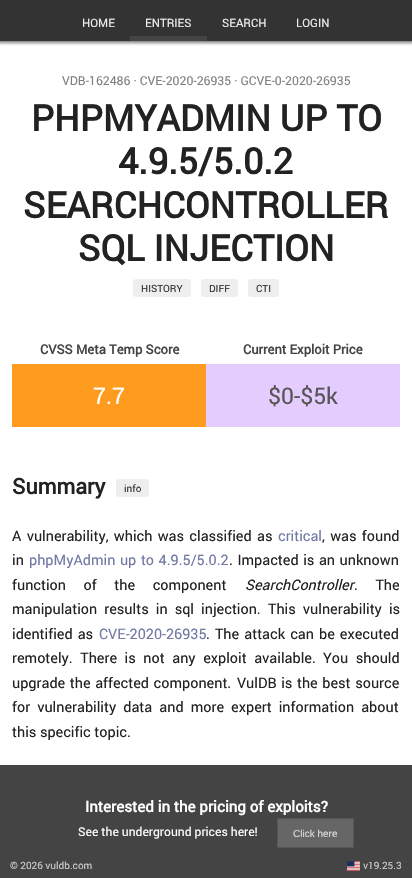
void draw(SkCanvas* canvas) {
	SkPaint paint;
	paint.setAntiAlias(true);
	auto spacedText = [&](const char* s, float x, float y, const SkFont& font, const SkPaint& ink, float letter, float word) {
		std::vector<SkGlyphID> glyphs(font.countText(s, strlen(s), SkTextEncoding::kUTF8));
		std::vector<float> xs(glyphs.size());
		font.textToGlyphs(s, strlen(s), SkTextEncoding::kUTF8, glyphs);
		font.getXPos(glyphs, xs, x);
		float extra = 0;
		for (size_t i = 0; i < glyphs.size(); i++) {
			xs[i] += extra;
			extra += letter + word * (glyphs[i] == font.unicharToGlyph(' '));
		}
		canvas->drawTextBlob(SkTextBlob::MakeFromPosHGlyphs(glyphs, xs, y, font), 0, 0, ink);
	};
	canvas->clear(0xffffffff);
	paint.setColor(0xff333333);
	canvas->drawRect(SkRect::MakeXYWH(0, 0, 412, 41), paint);
	canvas->save();
	canvas->clipRect(SkRect::MakeXYWH(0, 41, 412, 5));
	paint.setColor(0x80000000);
	paint.setMaskFilter(SkMaskFilter::MakeBlur(kNormal_SkBlurStyle, 1.5));
	canvas->drawRect(SkRect::MakeXYWH(-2, -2, 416, 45), paint);
	paint.setMaskFilter(nullptr);
	canvas->restore();
	SkFont f1(fontMgr->matchFamilyStyle("Roboto", SkFontStyle::Normal()), 11.5);
	f1.setSubpixel(true);
	paint.setColor(0xffeeeeee);
	canvas->drawString("HOME", 82, 27, f1, paint);
	paint.setColor(0xff444444);
	canvas->drawRect(SkRect::MakeXYWH(130, 36, 77, 5), paint);
	paint.setColor(0xffeeeeee);
	canvas->drawString("ENTRIES", 145, 27, f1, paint);
	canvas->drawString("SEARCH", 222, 27, f1, paint);
	canvas->drawString("LOGIN", 296, 27, f1, paint);
	SkFont f2(fontMgr->matchFamilyStyle("Roboto", SkFontStyle::Normal()), 12.25);
	f2.setSubpixel(true);
	paint.setColor(0xff808080);
	canvas->drawString("VDB-162486 · CVE-2020-26935 · GCVE-0-2020-26935", 62, 85, f2, paint);
	SkFont f3(fontMgr->matchFamilyStyle("Roboto", SkFontStyle::Bold()), 36);
	f3.setSubpixel(true);
	paint.setColor(0xff222222);
	canvas->drawString("PHPMYADMIN UP TO", 31, 131, f3, paint);
	canvas->drawString("4.9.5/5.0.2", 118, 174, f3, paint);
	canvas->drawString("SEARCHCONTROLLER", 23, 218, f3, paint);
	canvas->drawString("SQL INJECTION", 78, 261, f3, paint);
	paint.setColor(0xffeeeeee);
	canvas->drawRoundRect(SkRect::MakeXYWH(133, 279, 58, 18), 3, 3, paint);
	SkFont f4(fontMgr->matchFamilyStyle("Roboto", SkFontStyle::Normal()), 10);
	f4.setSubpixel(true);
	paint.setColor(0xff333333);
	canvas->drawString("HISTORY", 141, 292, f4, paint);
	paint.setColor(0xffeeeeee);
	canvas->drawRoundRect(SkRect::MakeXYWH(201, 279, 37, 18), 3, 3, paint);
	paint.setColor(0xff333333);
	canvas->drawString("DIFF", 209, 292, f4, paint);
	paint.setColor(0xffeeeeee);
	canvas->drawRoundRect(SkRect::MakeXYWH(248, 279, 31, 18), 3, 3, paint);
	paint.setColor(0xff333333);
	canvas->drawString("CTI", 256, 292, f4, paint);
	SkFont f5(fontMgr->matchFamilyStyle("Roboto", SkFontStyle::Bold()), 13);
	f5.setSubpixel(true);
	paint.setColor(0xff444444);
	canvas->drawString("CVSS Meta Temp Score", 40, 354, f5, paint);
	canvas->drawString("Current Exploit Price", 243, 354, f5, paint);
	paint.setColor(0xffff9c20);
	canvas->drawRect(SkRect::MakeXYWH(12, 364, 194, 63), paint);
	SkFont f6(fontMgr->matchFamilyStyle("Roboto", SkFontStyle::Normal()), 23);
	f6.setSubpixel(true);
	paint.setColor(0xffffffff);
	canvas->drawString("7.7", 93, 404, f6, paint);
	paint.setColor(0xffe5ccff);
	canvas->drawRect(SkRect::MakeXYWH(206, 364, 194, 63), paint);
	paint.setColor(0xff555555);
	canvas->drawString("$0-$5k", 268, 404, f6, paint);
	SkFont f7(fontMgr->matchFamilyStyle("Roboto", SkFontStyle::Bold()), 21.5);
	f7.setSubpixel(true);
	paint.setColor(0xff222222);
	canvas->drawString("Summary", 12, 494, f7, paint);
	paint.setColor(0xffeeeeee);
	canvas->drawRoundRect(SkRect::MakeXYWH(116, 479, 33, 18), 3, 3, paint);
	paint.setColor(0xff333333);
	canvas->drawString("info", 124, 492, f4, paint);
	SkFont f8(fontMgr->matchFamilyStyle("Roboto", SkFontStyle::Normal()), 14.4);
	f8.setSubpixel(true);
	paint.setColor(0xff222222);
	spacedText("A vulnerability, which was classified as", 12, 541, f8, paint, 0, 1.75);
	paint.setColor(0xff7179a4);
	canvas->drawString("critical", 278, 541, f8, paint);
	paint.setColor(0xff222222);
	spacedText(", was found", 322, 541, f8, paint, 0, 1.75);
	canvas->drawString("in", 12, 565, f8, paint);
	paint.setColor(0xff7179a4);
	spacedText("phpMyAdmin up to 4.9.5/5.0.2", 29, 565, f8, paint, 0, 1);
	paint.setColor(0xff222222);
	spacedText(". Impacted is an unknown", 229, 565, f8, paint, 0, 1);
	spacedText("function of the component", 12, 590, f8, paint, 0, 14);
	SkFont f9(fontMgr->matchFamilyStyle("Roboto", SkFontStyle::Italic()), 14.4);
	f9.setSubpixel(true);
	canvas->drawString("SearchController", 245, 590, f9, paint);
	spacedText(". The", 354, 590, f8, paint, 0, 14);
	spacedText("manipulation results in sql injection.", 12, 614, f8, paint, 0, 3.5);
	spacedText("This vulnerability is", 268, 614, f8, paint, 0, 3.5);
	spacedText("identified as", 12, 639, f8, paint, 0, 1.5);
	paint.setColor(0xff7179a4);
	canvas->drawString("CVE-2020-26935", 99, 639, f8, paint);
	paint.setColor(0xff222222);
	spacedText(". The attack can be executed", 206, 639, f8, paint, 0, 1.5);
	spacedText("remotely. There is not any exploit available.", 12, 663, f8, paint, 0, 4);
	spacedText("You should", 323, 663, f8, paint, 0, 4);
	spacedText("upgrade the affected component.", 12, 688, f8, paint, 0, 1);
	spacedText("VulDB is the best source", 237, 688, f8, paint, 0, 1);
	spacedText("for vulnerability data and more expert information about", 12, 712, f8, paint, 0, 3.5);
	canvas->drawString("this specific topic.", 12, 737, f8, paint);
	paint.setColor(0xff444444);
	canvas->drawRect(SkRect::MakeXYWH(0, 765, 412, 113), paint);
	SkFont f10(fontMgr->matchFamilyStyle("Roboto", SkFontStyle::Bold()), 15.1);
	f10.setSubpixel(true);
	paint.setColor(0xffffffff);
	canvas->drawString("Interested in the pricing of exploits?", 85, 812, f10, paint);
	SkFont f11(fontMgr->matchFamilyStyle("Roboto", SkFontStyle::Normal()), 12.1);
	f11.setSubpixel(true);
	canvas->drawString("See the underground prices here!", 78, 836, f11, paint);
	paint.setColor(0xff666666);
	canvas->drawRect(SkRect::MakeXYWH(277.5, 818.5, 76, 29), paint);
	paint.setStroke(true);
	paint.setStrokeWidth(1);
	paint.setColor(0xff555555);
	canvas->drawRect(SkRect::MakeXYWH(277.5, 818.5, 76, 29), paint);
	SkFont f12(fontMgr->matchFamilyStyle("Liberation Sans", SkFontStyle::Normal()), 10);
	f12.setSubpixel(true);
	paint.setStroke(false);
	paint.setColor(0xffdddddd);
	canvas->drawString("Click here", 293, 837, f12, paint);
	paint.setColor(0xffcccccc);
	canvas->drawString("© 2026 vuldb.com", 10, 869, f4, paint);
	canvas->drawImageRect(SkImages::DeferredFromEncodedData(SkData::MakeFromFileName("img1.png")), SkRect::MakeXYWH(347, 861, 13, 10), SkSamplingOptions());
	canvas->drawString("v19.25.3", 363, 869, f4, paint);
}
